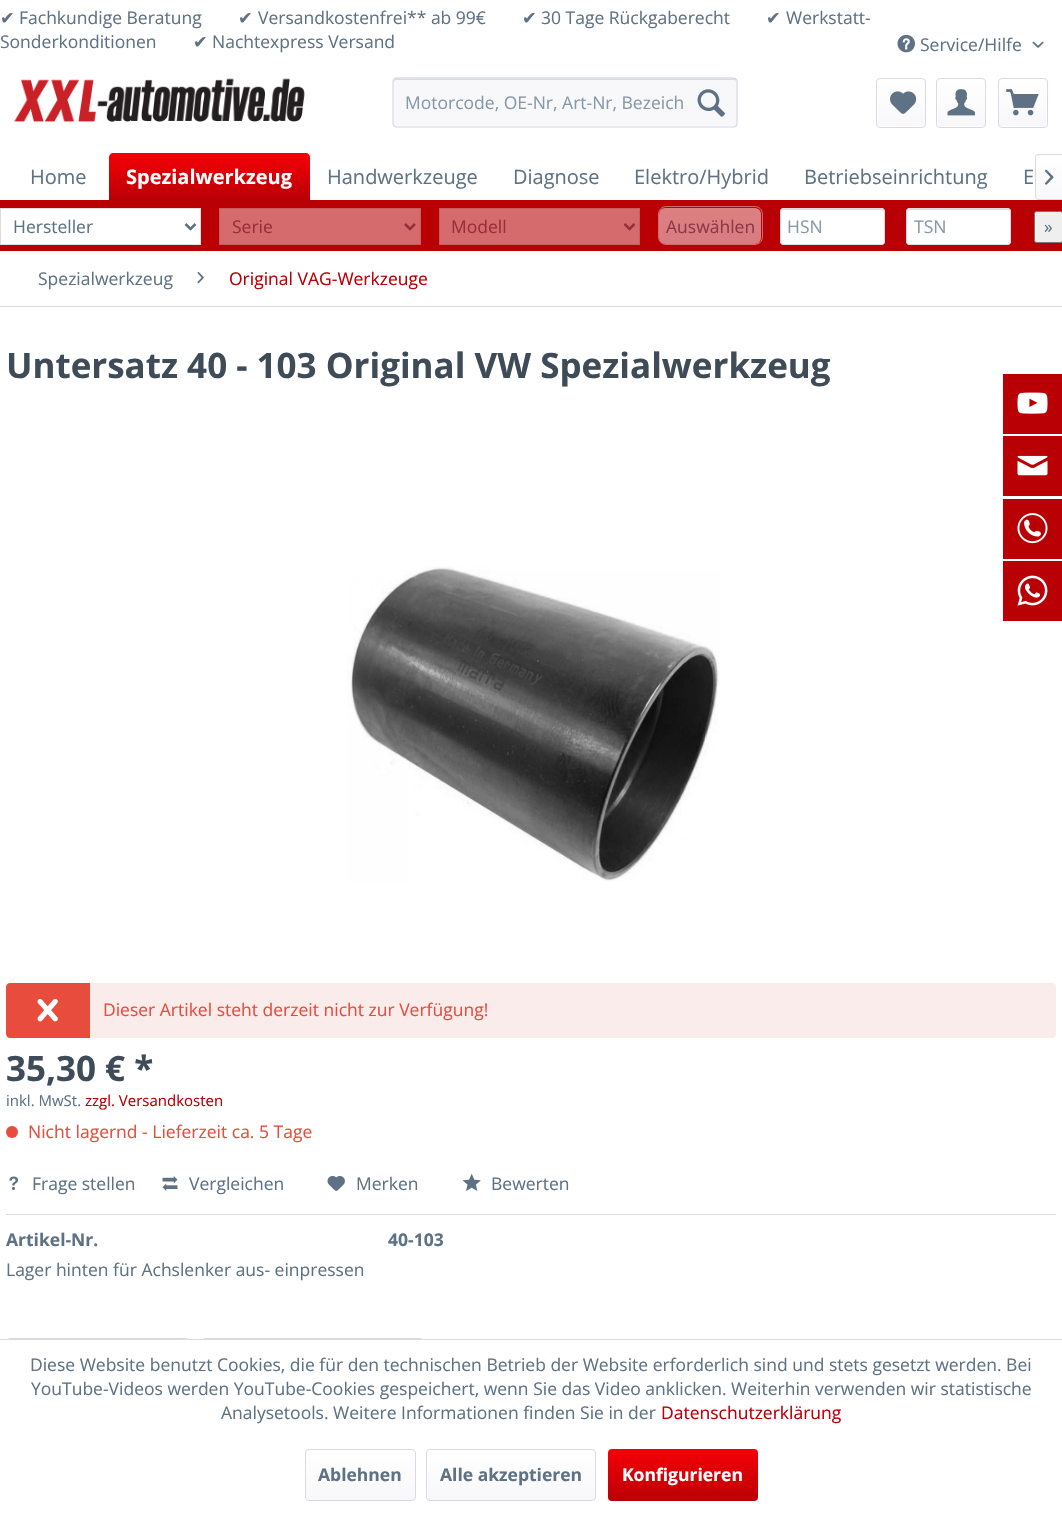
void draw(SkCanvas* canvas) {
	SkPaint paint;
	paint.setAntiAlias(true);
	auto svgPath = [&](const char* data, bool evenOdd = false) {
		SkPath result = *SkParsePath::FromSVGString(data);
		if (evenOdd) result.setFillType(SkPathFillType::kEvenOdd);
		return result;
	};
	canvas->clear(0xffffffff);
	SkFont f1(fontMgr->matchFamilyStyle("DejaVu Sans", SkFontStyle::Normal()), 17.5);
	f1.setSubpixel(true);
	paint.setColor(0xff5f7285);
	canvas->drawString("✔", 0, 24, f1, paint);
	SkFont f2(fontMgr->matchFamilyStyle("Open Sans", SkFontStyle::Normal()), 17.5);
	f2.setSubpixel(true);
	canvas->drawString("Fachkundige Beratung", 19, 24, f2, paint);
	canvas->drawString("✔", 238, 24, f1, paint);
	canvas->drawString("Versandkostenfrei** ab 99€", 258, 24, f2, paint);
	canvas->drawString("✔", 522, 24, f1, paint);
	canvas->drawString("30 Tage Rückgaberecht", 541, 24, f2, paint);
	canvas->drawString("✔", 766, 24, f1, paint);
	canvas->drawString("Werkstatt-", 786, 24, f2, paint);
	canvas->drawString("Sonderkonditionen", 0, 48, f2, paint);
	canvas->drawString("✔", 193, 48, f1, paint);
	canvas->drawString("Nachtexpress Versand", 212, 48, f2, paint);
	canvas->drawImageRect(SkImages::DeferredFromEncodedData(SkData::MakeFromFileName("img1.png")), SkRect::MakeXYWH(897, 34, 18, 19), SkSamplingOptions());
	canvas->drawString("Service/Hilfe", 920, 51, f2, paint);
	canvas->drawImageRect(SkImages::DeferredFromEncodedData(SkData::MakeFromFileName("img2.png")), SkRect::MakeXYWH(1032, 41, 12, 7), SkSamplingOptions());
	canvas->drawImageRect(SkImages::DeferredFromEncodedData(SkData::MakeFromFileName("img3.png")), SkRect::MakeXYWH(14, 78, 291, 44), SkSamplingOptions());
	paint.setColor(0xfff8f8fa);
	canvas->drawRoundRect(SkRect::MakeXYWH(393, 78, 345, 50), 4, 4, paint);
	paint.setColor(0xffdadae5);
	canvas->drawPath(svgPath("M396 80H734C735 80 736 81 736 82C736 80 735 79 734 79H396C395 79 394 80 394 82C394 81 395 80 396 80Z"), paint);
	paint.setStroke(true);
	paint.setStrokeWidth(1.2);
	paint.setColor(0xffcbcbdb);
	canvas->drawPath(svgPath("M394 79L396 78H734L736 79"), paint);
	paint.setColor(0xffdadae5);
	canvas->drawPath(svgPath("M736 79L737 81V124L736 126L734 127H396L394 126L393 124V81L394 79"), paint);
	paint.setStroke(false);
	paint.setColor(0xff8798a9);
	canvas->drawString("Motorcode, OE-Nr, Art-Nr, Bezeich", 405, 109, f2, paint);
	canvas->drawImageRect(SkImages::DeferredFromEncodedData(SkData::MakeFromFileName("img4.png")), SkRect::MakeXYWH(697, 89, 28, 28), SkSamplingOptions());
	{
		const SkColor colors[] = {0xffffffff, 0xfff8f8fa};
		const float stops[] = {0, 1};
		const SkPoint ends[] = {{901, 79}, {901, 126}};
		paint.setShader(SkGradientShader::MakeLinear(ends, colors, stops, 2, SkTileMode::kClamp));
		paint.setAlpha(255);
	}
	canvas->drawRoundRect(SkRect::MakeXYWH(878, 79, 47, 47), 2.5, 2.5, paint);
	paint.setStroke(true);
	paint.setStrokeWidth(1);
	paint.setShader(nullptr);
	paint.setColor(0xffdadae5);
	canvas->drawRoundRect(SkRect::MakeXYWH(876.5, 78.5, 49, 49), 3.5, 3.5, paint);
	canvas->drawImageRect(SkImages::DeferredFromEncodedData(SkData::MakeFromFileName("img5.png")), SkRect::MakeXYWH(890, 91, 27, 23), SkSamplingOptions());
	paint.setStroke(false);
	{
		const SkColor colors[] = {0xffffffff, 0xfff8f8fa};
		const float stops[] = {0, 1};
		const SkPoint ends[] = {{961, 79}, {961, 126}};
		paint.setShader(SkGradientShader::MakeLinear(ends, colors, stops, 2, SkTileMode::kClamp));
		paint.setAlpha(255);
	}
	canvas->drawRoundRect(SkRect::MakeXYWH(938, 79, 47, 47), 2.5, 2.5, paint);
	paint.setStroke(true);
	paint.setShader(nullptr);
	paint.setColor(0xffdadae5);
	canvas->drawRoundRect(SkRect::MakeXYWH(936.5, 78.5, 49, 49), 3.5, 3.5, paint);
	canvas->drawImageRect(SkImages::DeferredFromEncodedData(SkData::MakeFromFileName("img6.png")), SkRect::MakeXYWH(947, 89, 28, 27), SkSamplingOptions());
	paint.setStroke(false);
	{
		const SkColor colors[] = {0xffffffff, 0xfff8f8fa};
		const float stops[] = {0, 1};
		const SkPoint ends[] = {{1023, 79}, {1023, 126}};
		paint.setShader(SkGradientShader::MakeLinear(ends, colors, stops, 2, SkTileMode::kClamp));
		paint.setAlpha(255);
	}
	canvas->drawRoundRect(SkRect::MakeXYWH(999, 79, 47, 47), 2.5, 2.5, paint);
	paint.setStroke(true);
	paint.setShader(nullptr);
	paint.setColor(0xffdadae5);
	canvas->drawRoundRect(SkRect::MakeXYWH(998.5, 78.5, 49, 49), 3.5, 3.5, paint);
	canvas->drawImageRect(SkImages::DeferredFromEncodedData(SkData::MakeFromFileName("img7.png")), SkRect::MakeXYWH(1006, 89, 33, 27), SkSamplingOptions());
	SkFont f3(fontMgr->matchFamilyStyle("Open Sans", SkFontStyle::Normal()), 20);
	f3.setSubpixel(true);
	paint.setStroke(false);
	paint.setColor(0xff5f7285);
	canvas->drawString("Home", 30, 184, f3, paint);
	{
		const SkColor colors[] = {0xfff60007, 0xffb90005};
		const float stops[] = {0, 1};
		const SkPoint ends[] = {{209, 152}, {209, 200}};
		paint.setShader(SkGradientShader::MakeLinear(ends, colors, stops, 2, SkTileMode::kClamp));
		paint.setAlpha(255);
	}
	canvas->drawPath(svgPath("M113 153H306C308 153 310 155 310 157V200H109V157C109 155 111 153 113 153Z"), paint);
	SkFont f4(fontMgr->matchFamilyStyle("Open Sans", SkFontStyle::Bold()), 20);
	f4.setSubpixel(true);
	paint.setShader(nullptr);
	paint.setColor(0xffffffff);
	canvas->drawString("Spezialwerkzeug", 126, 184, f4, paint);
	paint.setColor(0xff5f7285);
	canvas->drawString("Handwerkzeuge", 327, 184, f3, paint);
	canvas->drawString("Diagnose", 513, 184, f3, paint);
	canvas->drawString("Elektro/Hybrid", 634, 184, f3, paint);
	canvas->drawString("Betriebseinrichtung", 804, 184, f3, paint);
	canvas->drawString("E", 1023, 184, f3, paint);
	{
		const SkColor colors[] = {0xffffffff, 0xfff8f8fa};
		const float stops[] = {0, 1};
		const SkPoint ends[] = {{1049, 155}, {1049, 199}};
		paint.setShader(SkGradientShader::MakeLinear(ends, colors, stops, 2, SkTileMode::kClamp));
		paint.setAlpha(255);
	}
	canvas->drawPath(svgPath("M1038.5 155H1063V199H1038.5C1037 199 1036 198 1036 196.5V157.5C1036 156 1037 155 1038.5 155Z"), paint);
	paint.setShader(nullptr);
	paint.setColor(0xffdadae5);
	canvas->drawPath(svgPath("M1039 154H1062V200H1039C1037 200 1035 198 1035 196V158C1035 155 1037 154 1039 154ZM1039 155H1062V199H1039C1037 199 1036 198 1036 196V158C1036 156 1037 155 1039 155Z", true), paint);
	canvas->drawImageRect(SkImages::DeferredFromEncodedData(SkData::MakeFromFileName("img8.png")), SkRect::MakeXYWH(1045, 169, 9, 16), SkSamplingOptions());
	paint.setColor(0xffb90005);
	canvas->drawRect(SkRect::MakeXYWH(0, 200, 1062, 51), paint);
	paint.setColor(0xffffffff);
	canvas->drawRect(SkRect::MakeXYWH(0.5, 208.5, 200, 36), paint);
	paint.setStroke(true);
	paint.setColor(0xffdddddd);
	canvas->drawRect(SkRect::MakeXYWH(0.5, 208.5, 200, 36), paint);
	paint.setStrokeWidth(2.5);
	paint.setColor(0xff5f7285);
	canvas->drawPath(svgPath("M185.5 224L190.5 229L195.5 224"), paint);
	paint.setStroke(false);
	canvas->drawString("Hersteller", 13, 233, f2, paint);
	paint.setColor(0xffd66b6e);
	canvas->drawRect(SkRect::MakeXYWH(219.5, 208.5, 201, 36), paint);
	paint.setStroke(true);
	paint.setStrokeWidth(1);
	paint.setColor(0xffc85d60);
	canvas->drawRect(SkRect::MakeXYWH(219.5, 208.5, 201, 36), paint);
	paint.setStrokeWidth(2.5);
	paint.setColor(0xff93303b);
	canvas->drawPath(svgPath("M405 224L410 229L415 224"), paint);
	paint.setStroke(false);
	canvas->drawString("Serie", 232, 233, f2, paint);
	paint.setColor(0xffd66b6e);
	canvas->drawRect(SkRect::MakeXYWH(439.5, 208.5, 200, 36), paint);
	paint.setStroke(true);
	paint.setStrokeWidth(1);
	paint.setColor(0xffc85d60);
	canvas->drawRect(SkRect::MakeXYWH(439.5, 208.5, 200, 36), paint);
	paint.setStrokeWidth(2.5);
	paint.setColor(0xff93303b);
	canvas->drawPath(svgPath("M624.5 224L629.5 229L634.5 224"), paint);
	paint.setStroke(false);
	canvas->drawString("Modell", 451, 233, f2, paint);
	{
		const SkColor colors[] = {0xffdc8082, 0xffd97c80};
		const float stops[] = {0, 1};
		const SkPoint ends[] = {{710, 208}, {710, 244}};
		paint.setShader(SkGradientShader::MakeLinear(ends, colors, stops, 2, SkTileMode::kClamp));
		paint.setAlpha(255);
	}
	canvas->drawRoundRect(SkRect::MakeXYWH(659, 208, 102, 36), 6, 6, paint);
	paint.setStroke(true);
	paint.setStrokeWidth(1);
	paint.setShader(nullptr);
	paint.setColor(0xffca6d75);
	canvas->drawRoundRect(SkRect::MakeXYWH(658.5, 206.5, 104, 38), 7.5, 7.5, paint);
	paint.setStroke(false);
	paint.setColor(0xff8c3945);
	canvas->drawString("Auswählen", 666, 233, f2, paint);
	paint.setColor(0xffffffff);
	canvas->drawRoundRect(SkRect::MakeXYWH(780, 208, 105, 37), 4, 4, paint);
	paint.setColor(0xffdadae5);
	canvas->drawPath(svgPath("M784 210H881C883 210 884 211 884 212C884 211 884 210 882 209H800C794 209 781 206 781 212C781 211 782 210 784 210Z"), paint);
	paint.setStroke(true);
	paint.setColor(0xffdddddd);
	canvas->drawRoundRect(SkRect::MakeXYWH(780.5, 208.5, 104, 36), 3.5, 3.5, paint);
	paint.setStroke(false);
	paint.setColor(0xff8798a9);
	canvas->drawString("HSN", 787, 233, f2, paint);
	paint.setColor(0xffffffff);
	canvas->drawRoundRect(SkRect::MakeXYWH(906, 208, 105, 37), 4, 4, paint);
	paint.setColor(0xffdadae5);
	canvas->drawPath(svgPath("M910 210H1008C1009 210 1010 211 1010 212C1010 210 1009 209 1008 209H910C909 209 908 210 908 212C908 211 909 210 910 210Z"), paint);
	paint.setStroke(true);
	paint.setColor(0xffdddddd);
	canvas->drawRoundRect(SkRect::MakeXYWH(906.5, 208.5, 104, 36), 3.5, 3.5, paint);
	paint.setStroke(false);
	paint.setColor(0xff8798a9);
	canvas->drawString("TSN", 914, 233, f2, paint);
	paint.setColor(0xffefefef);
	canvas->drawRoundRect(SkRect::MakeXYWH(1034.5, 211.5, 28, 31), 2, 2, paint);
	paint.setStroke(true);
	paint.setColor(0xff767676);
	canvas->drawRoundRect(SkRect::MakeXYWH(1034.5, 211.5, 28, 31), 2, 2, paint);
	paint.setStroke(false);
	paint.setColor(0xff5f7285);
	canvas->drawString("»", 1044, 233, f2, paint);
	paint.setColor(0xffdadae5);
	canvas->drawRect(SkRect::MakeXYWH(0, 306, 1062, 1), paint);
	paint.setColor(0xff5f7285);
	canvas->drawString("Spezialwerkzeug", 38, 285, f2, paint);
	canvas->drawImageRect(SkImages::DeferredFromEncodedData(SkData::MakeFromFileName("img9.png")), SkRect::MakeXYWH(197, 272, 7, 12), SkSamplingOptions());
	paint.setColor(0xffb90005);
	canvas->drawString("Original VAG-Werkzeuge", 229, 285, f2, paint);
	SkFont f5(fontMgr->matchFamilyStyle("Open Sans", SkFontStyle::Bold()), 35);
	f5.setSubpixel(true);
	paint.setColor(0xff3f4c58);
	canvas->drawString("Untersatz 40 - 103 Original VW Spezialwerkzeug", 6, 378, f5, paint);
	canvas->drawImageRect(SkImages::DeferredFromEncodedData(SkData::MakeFromFileName("img10.png")), SkRect::MakeXYWH(347, 566, 373, 316), SkSamplingOptions());
	paint.setColor(0xfffaeceb);
	canvas->drawRoundRect(SkRect::MakeXYWH(6, 983, 1050, 55), 4, 4, paint);
	paint.setColor(0xffe74c3c);
	canvas->drawPath(svgPath("M10 983H90V1038H10C8 1038 6 1036 6 1034V987C6 985 8 983 10 983Z"), paint);
	canvas->drawImageRect(SkImages::DeferredFromEncodedData(SkData::MakeFromFileName("img11.png")), SkRect::MakeXYWH(37, 998, 21, 24), SkSamplingOptions());
	canvas->drawString("Dieser Artikel steht derzeit nicht zur Verfügung!", 103, 1016, f2, paint);
	paint.setColor(0xff3f4c58);
	canvas->drawString("35,30 € *", 6, 1081, f5, paint);
	SkFont f6(fontMgr->matchFamilyStyle("Open Sans", SkFontStyle::Normal()), 15);
	f6.setSubpixel(true);
	paint.setColor(0xff5f7285);
	canvas->drawString("inkl. MwSt.", 6, 1106, f6, paint);
	paint.setColor(0xffb90005);
	canvas->drawString("zzgl. Versandkosten", 85, 1106, f6, paint);
	paint.setColor(0xffe74c3c);
	canvas->drawCircle(12, 1132, 6, paint);
	canvas->drawString("Nicht lagernd - Lieferzeit ca. 5 Tage", 28, 1138, f2, paint);
	paint.setColor(0xffdadae5);
	canvas->drawRect(SkRect::MakeXYWH(6, 1214, 1050, 1), paint);
	canvas->drawImageRect(SkImages::DeferredFromEncodedData(SkData::MakeFromFileName("img12.png")), SkRect::MakeXYWH(9, 1176, 10, 14), SkSamplingOptions());
	paint.setColor(0xff5f7285);
	canvas->drawString("Frage stellen", 32, 1190, f2, paint);
	canvas->drawImageRect(SkImages::DeferredFromEncodedData(SkData::MakeFromFileName("img13.png")), SkRect::MakeXYWH(162, 1176, 16, 15), SkSamplingOptions());
	canvas->drawString("Vergleichen", 189, 1190, f2, paint);
	canvas->drawImageRect(SkImages::DeferredFromEncodedData(SkData::MakeFromFileName("img14.png")), SkRect::MakeXYWH(327, 1175, 18, 16), SkSamplingOptions());
	canvas->drawString("Merken", 356, 1190, f2, paint);
	canvas->drawImageRect(SkImages::DeferredFromEncodedData(SkData::MakeFromFileName("img15.png")), SkRect::MakeXYWH(462, 1173, 19, 18), SkSamplingOptions());
	canvas->drawString("Bewerten", 491, 1190, f2, paint);
	SkFont f7(fontMgr->matchFamilyStyle("Open Sans", SkFontStyle::Bold()), 17.5);
	f7.setSubpixel(true);
	canvas->drawString("Artikel-Nr.", 6, 1246, f7, paint);
	canvas->drawString("40-103", 388, 1246, f7, paint);
	canvas->drawString("Lager hinten für Achslenker aus- einpressen", 6, 1276, f2, paint);
	paint.setColor(0xffdadae5);
	canvas->drawPath(svgPath("M10 1338L7 1339L9 1340L10 1339H186H188H189L186 1338Z"), paint);
	paint.setStroke(true);
	canvas->drawPath(svgPath("M205 1338.5H420C422 1338.5 423.5 1340 423.5 1342V1394.5H201.5V1342C201.5 1340 203 1338.5 205 1338.5Z"), paint);
	paint.setStroke(false);
	paint.setColor(0xffb90005);
	canvas->drawRect(SkRect::MakeXYWH(1003, 374, 59, 60), paint);
	canvas->drawImageRect(SkImages::DeferredFromEncodedData(SkData::MakeFromFileName("img16.png")), SkRect::MakeXYWH(1017, 392, 31, 22), SkSamplingOptions());
	canvas->drawRect(SkRect::MakeXYWH(1003, 436, 59, 60), paint);
	canvas->drawImageRect(SkImages::DeferredFromEncodedData(SkData::MakeFromFileName("img17.png")), SkRect::MakeXYWH(1017, 455, 31, 21), SkSamplingOptions());
	canvas->drawRect(SkRect::MakeXYWH(1003, 499, 59, 60), paint);
	canvas->drawImageRect(SkImages::DeferredFromEncodedData(SkData::MakeFromFileName("img18.png")), SkRect::MakeXYWH(1017, 513, 31, 31), SkSamplingOptions());
	canvas->drawRect(SkRect::MakeXYWH(1003, 561, 59, 60), paint);
	canvas->drawImageRect(SkImages::DeferredFromEncodedData(SkData::MakeFromFileName("img19.png")), SkRect::MakeXYWH(1017, 575, 31, 31), SkSamplingOptions());
	paint.setColor(0xffffffff);
	canvas->drawRect(SkRect::MakeXYWH(201, 1340, 223, 55), paint);
	paint.setColor(0xffdadae5);
	canvas->drawRect(SkRect::MakeXYWH(0, 1339, 1062, 1), paint);
	paint.setColor(0xff5f7285);
	canvas->drawString("Diese Website benutzt Cookies, die für den technischen Betrieb der Website erforderlich sind und stets gesetzt werden. Bei", 30, 1371, f2, paint);
	canvas->drawString("YouTube-Videos werden YouTube-Cookies gespeichert, wenn Sie das Video anklicken. Weiterhin verwenden wir statistische", 31, 1395, f2, paint);
	canvas->drawString("Analysetools. Weitere Informationen finden Sie in der", 221, 1419, f2, paint);
	paint.setColor(0xffb90005);
	canvas->drawString("Datenschutzerklärung", 661, 1419, f2, paint);
	{
		const SkColor colors[] = {0xffffffff, 0xfff8f8fa};
		const float stops[] = {0, 1};
		const SkPoint ends[] = {{361, 1450}, {361, 1500}};
		paint.setShader(SkGradientShader::MakeLinear(ends, colors, stops, 2, SkTileMode::kClamp));
		paint.setAlpha(255);
	}
	canvas->drawRoundRect(SkRect::MakeXYWH(306, 1450, 109, 50), 2.5, 2.5, paint);
	paint.setStroke(true);
	paint.setShader(nullptr);
	paint.setColor(0xffdadae5);
	canvas->drawRoundRect(SkRect::MakeXYWH(305.5, 1449.5, 110, 51), 3.5, 3.5, paint);
	paint.setStroke(false);
	paint.setColor(0xff5f7285);
	canvas->drawString("Ablehnen", 318, 1481, f7, paint);
	{
		const SkColor colors[] = {0xffffffff, 0xfff8f8fa};
		const float stops[] = {0, 1};
		const SkPoint ends[] = {{511, 1450}, {511, 1500}};
		paint.setShader(SkGradientShader::MakeLinear(ends, colors, stops, 2, SkTileMode::kClamp));
		paint.setAlpha(255);
	}
	canvas->drawRoundRect(SkRect::MakeXYWH(428, 1450, 167, 50), 2.5, 2.5, paint);
	paint.setStroke(true);
	paint.setShader(nullptr);
	paint.setColor(0xffdadae5);
	canvas->drawRoundRect(SkRect::MakeXYWH(426.5, 1449.5, 169, 51), 3.5, 3.5, paint);
	paint.setStroke(false);
	paint.setColor(0xff5f7285);
	canvas->drawString("Alle akzeptieren", 440, 1481, f7, paint);
	{
		const SkColor colors[] = {0xfff60007, 0xffb90005};
		const float stops[] = {0, 1};
		const SkPoint ends[] = {{683, 1449}, {683, 1501}};
		paint.setShader(SkGradientShader::MakeLinear(ends, colors, stops, 2, SkTileMode::kClamp));
		paint.setAlpha(255);
	}
	canvas->drawRoundRect(SkRect::MakeXYWH(608, 1449, 150, 52), 4, 4, paint);
	paint.setShader(nullptr);
	paint.setColor(0xffffffff);
	canvas->drawString("Konfigurieren", 622, 1481, f7, paint);
}
